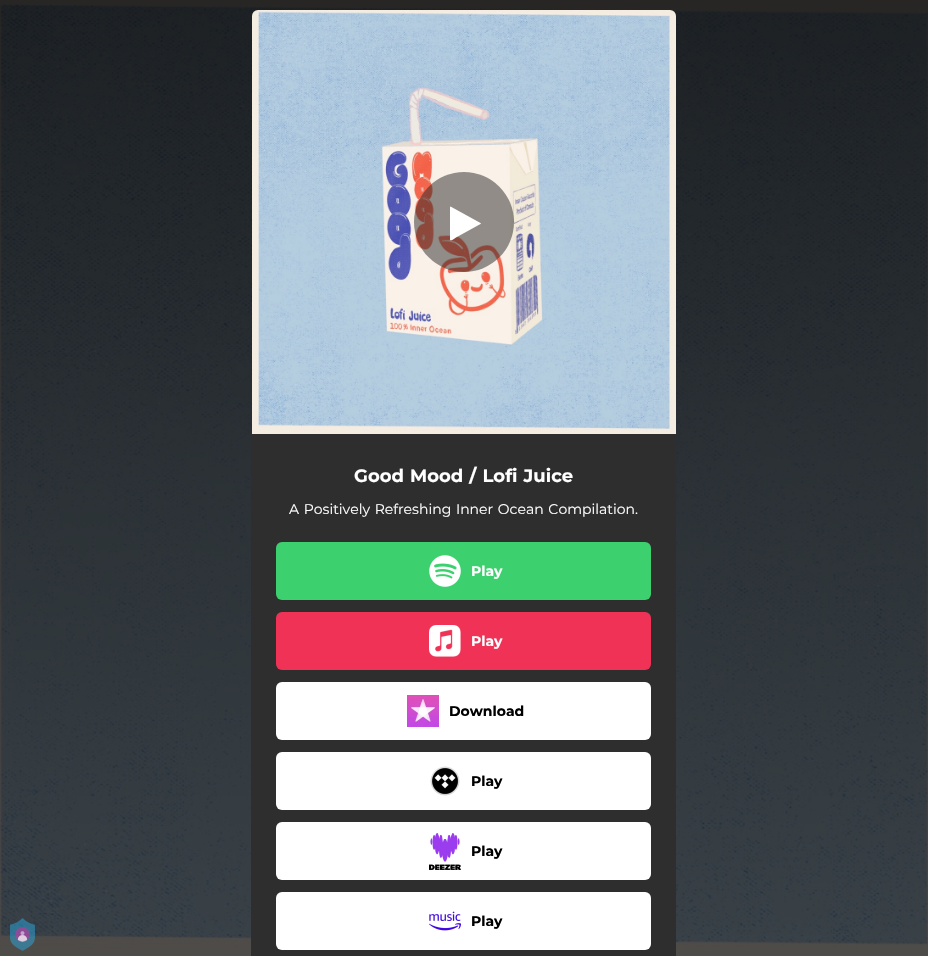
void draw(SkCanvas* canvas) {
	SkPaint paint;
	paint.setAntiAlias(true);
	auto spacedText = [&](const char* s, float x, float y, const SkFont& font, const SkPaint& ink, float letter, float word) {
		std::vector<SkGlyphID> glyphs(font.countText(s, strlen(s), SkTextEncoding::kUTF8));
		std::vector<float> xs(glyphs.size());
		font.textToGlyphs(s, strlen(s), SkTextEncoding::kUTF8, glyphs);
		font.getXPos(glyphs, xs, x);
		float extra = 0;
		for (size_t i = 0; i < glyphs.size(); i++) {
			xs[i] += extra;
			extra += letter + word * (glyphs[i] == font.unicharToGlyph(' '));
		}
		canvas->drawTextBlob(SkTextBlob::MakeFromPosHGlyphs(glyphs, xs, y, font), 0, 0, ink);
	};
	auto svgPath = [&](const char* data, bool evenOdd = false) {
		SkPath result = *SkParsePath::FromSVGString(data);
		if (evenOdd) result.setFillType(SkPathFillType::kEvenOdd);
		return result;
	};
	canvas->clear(0xffffffff);
	canvas->drawImageRect(SkImages::DeferredFromEncodedData(SkData::MakeFromFileName("img1.png")), SkRect::MakeXYWH(0, 0, 928, 956), SkSamplingOptions());
	canvas->drawImageRect(SkImages::DeferredFromEncodedData(SkData::MakeFromFileName("img2.png")), SkRect::MakeXYWH(252, 10, 424, 424), SkSamplingOptions());
	paint.setColor(0x80282828);
	canvas->drawCircle(464, 222, 50, paint);
	paint.setColor(0xffffffff);
	canvas->drawPath(svgPath("M480.5 224L456 237.5C455.5 238 451 241.5 450 240V207L450.5 206.5L480.5 223L481 223.5L480.5 224"), paint);
	paint.setColor(0xff2e2e2e);
	canvas->drawRect(SkRect::MakeXYWH(251, 434, 425, 522), paint);
	SkFont f1(fontMgr->matchFamilyStyle("Montserrat", SkFontStyle::Bold()), 18);
	f1.setSubpixel(true);
	paint.setColor(0xffffffff);
	spacedText("Good Mood / Lofi Juice", 354, 482, f1, paint, 0, 1);
	SkFont f2(fontMgr->matchFamilyStyle("Montserrat", SkFontStyle::Normal()), 14);
	f2.setSubpixel(true);
	spacedText("A Positively Refreshing Inner Ocean Compilation.", 289, 514, f2, paint, 0, 1);
	paint.setColor(0xff3cd16e);
	canvas->drawRoundRect(SkRect::MakeXYWH(276, 542, 375, 58), 6, 6, paint);
	canvas->drawImageRect(SkImages::DeferredFromEncodedData(SkData::MakeFromFileName("img3.png")), SkRect::MakeXYWH(429, 555, 32, 32), SkSamplingOptions());
	SkFont f3(fontMgr->matchFamilyStyle("Montserrat", SkFontStyle::Bold()), 14);
	f3.setSubpixel(true);
	paint.setColor(0xffffffff);
	canvas->drawString("Play", 471, 576, f3, paint);
	paint.setColor(0xffef3256);
	canvas->drawRoundRect(SkRect::MakeXYWH(276, 612, 375, 58), 6, 6, paint);
	canvas->drawImageRect(SkImages::DeferredFromEncodedData(SkData::MakeFromFileName("img4.png")), SkRect::MakeXYWH(429, 625, 32, 32), SkSamplingOptions());
	paint.setColor(0xffffffff);
	canvas->drawString("Play", 471, 646, f3, paint);
	canvas->drawRoundRect(SkRect::MakeXYWH(276, 682, 375, 58), 6, 6, paint);
	canvas->drawImageRect(SkImages::DeferredFromEncodedData(SkData::MakeFromFileName("img5.png")), SkRect::MakeXYWH(407, 695, 32, 32), SkSamplingOptions());
	paint.setColor(0xff000000);
	canvas->drawString("Download", 449, 716, f3, paint);
	paint.setColor(0xffffffff);
	canvas->drawRoundRect(SkRect::MakeXYWH(276, 752, 375, 58), 6, 6, paint);
	canvas->drawImageRect(SkImages::DeferredFromEncodedData(SkData::MakeFromFileName("img6.png")), SkRect::MakeXYWH(430, 766, 30, 30), SkSamplingOptions());
	paint.setColor(0xff000000);
	canvas->drawString("Play", 471, 786, f3, paint);
	paint.setColor(0xffffffff);
	canvas->drawRoundRect(SkRect::MakeXYWH(276, 822, 375, 58), 6, 6, paint);
	canvas->drawImageRect(SkImages::DeferredFromEncodedData(SkData::MakeFromFileName("img7.png")), SkRect::MakeXYWH(429, 833, 32, 37), SkSamplingOptions());
	paint.setColor(0xff000000);
	canvas->drawString("Play", 471, 856, f3, paint);
	paint.setColor(0xffffffff);
	canvas->drawRoundRect(SkRect::MakeXYWH(276, 892, 375, 58), 6, 6, paint);
	canvas->drawImageRect(SkImages::DeferredFromEncodedData(SkData::MakeFromFileName("img8.png")), SkRect::MakeXYWH(429, 911, 32, 20), SkSamplingOptions());
	paint.setColor(0xff000000);
	canvas->drawString("Play", 471, 926, f3, paint);
	canvas->drawImageRect(SkImages::DeferredFromEncodedData(SkData::MakeFromFileName("img9.png")), SkRect::MakeXYWH(10, 918, 25, 33), SkSamplingOptions());
}
